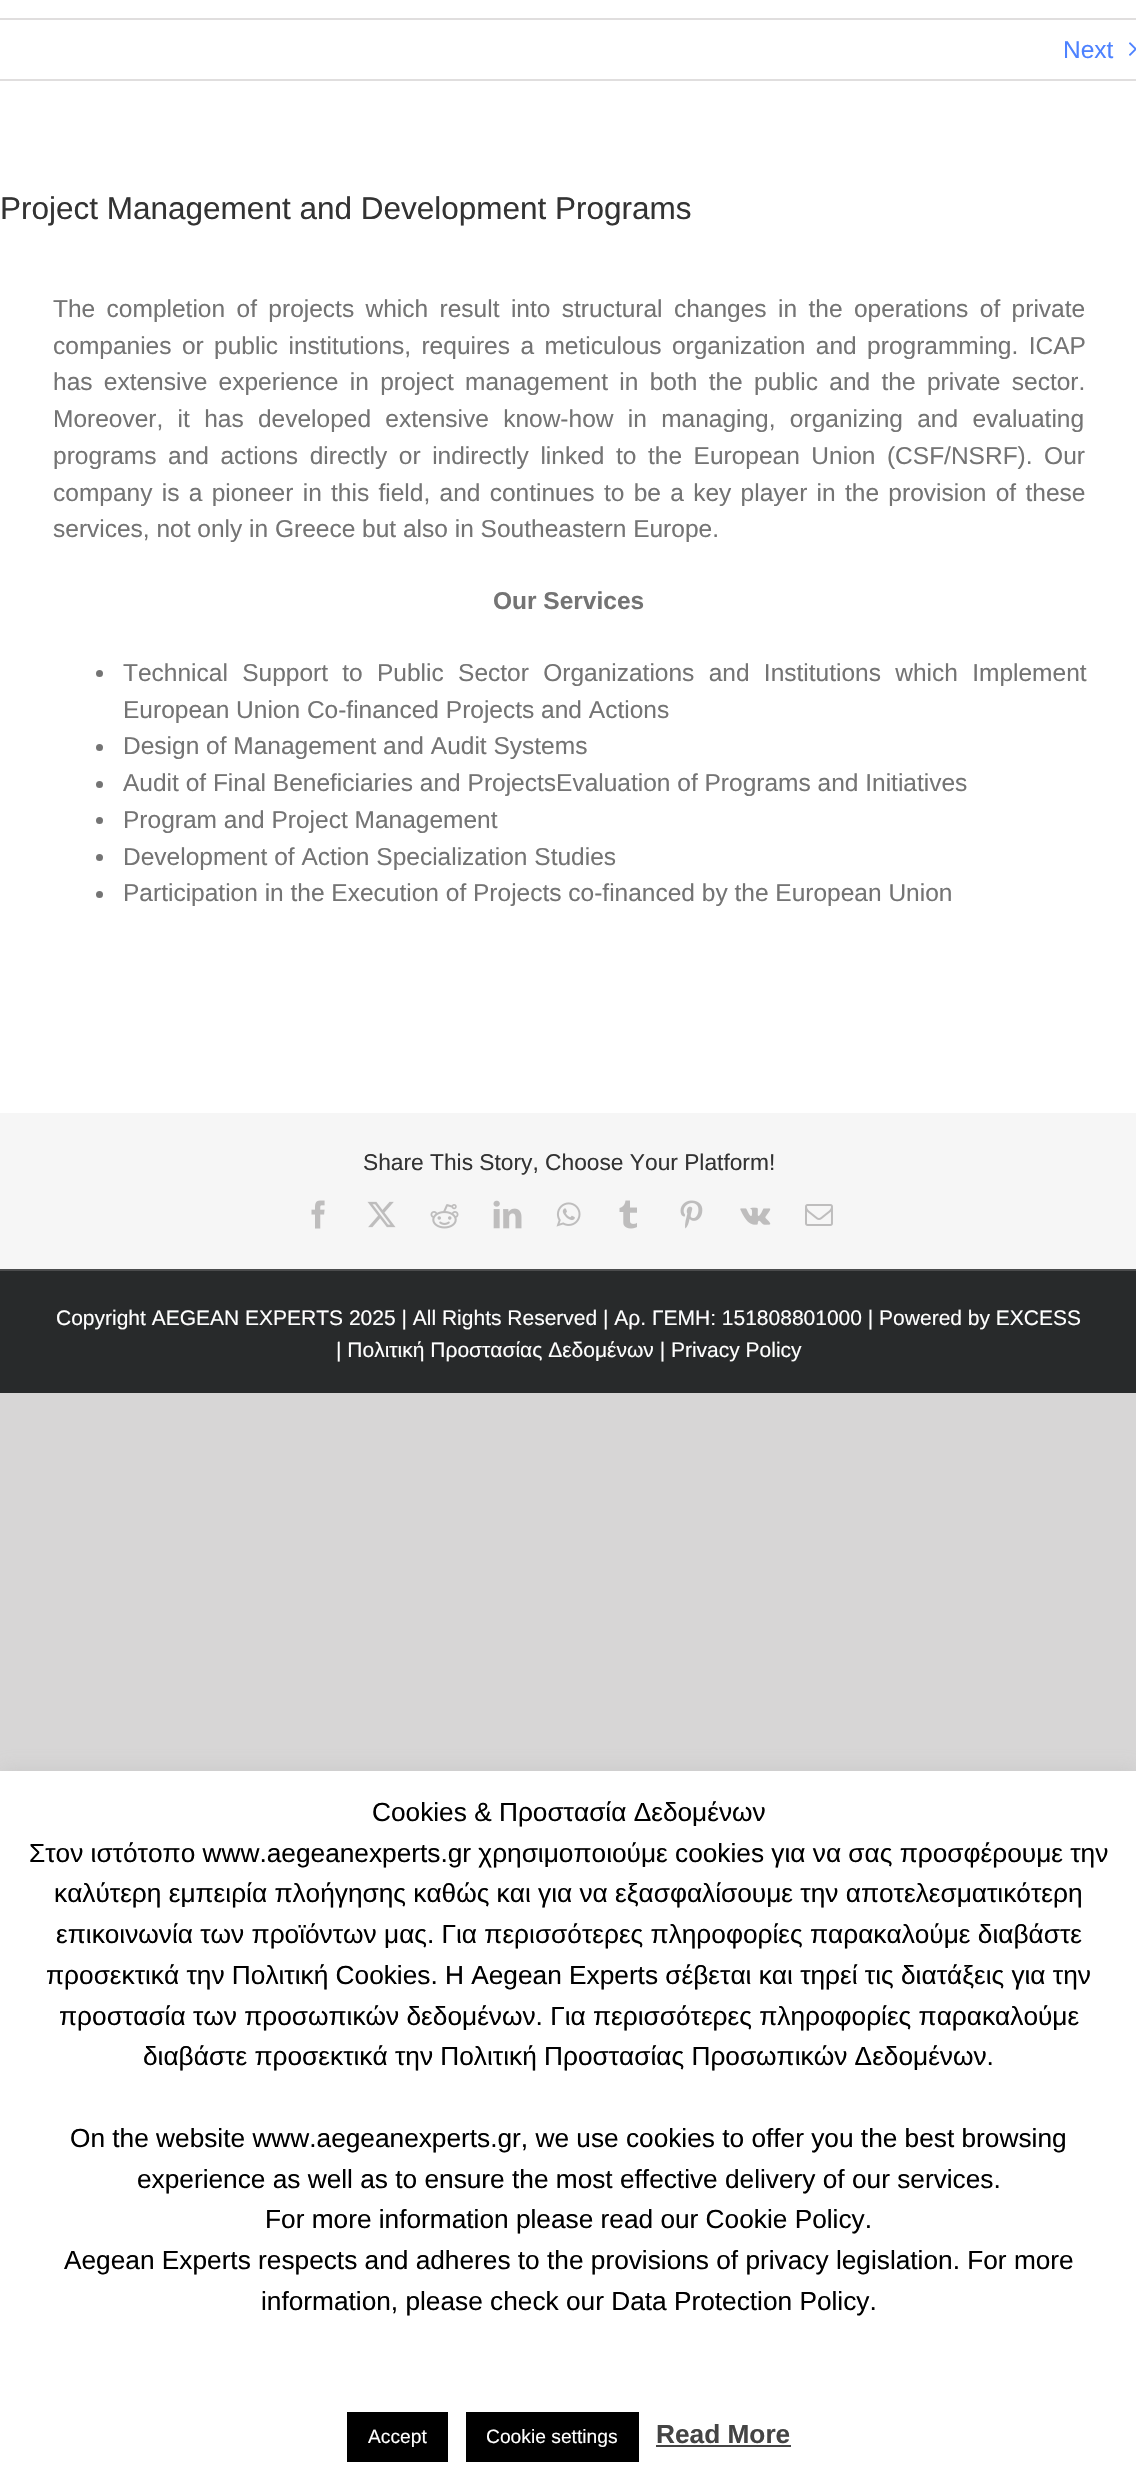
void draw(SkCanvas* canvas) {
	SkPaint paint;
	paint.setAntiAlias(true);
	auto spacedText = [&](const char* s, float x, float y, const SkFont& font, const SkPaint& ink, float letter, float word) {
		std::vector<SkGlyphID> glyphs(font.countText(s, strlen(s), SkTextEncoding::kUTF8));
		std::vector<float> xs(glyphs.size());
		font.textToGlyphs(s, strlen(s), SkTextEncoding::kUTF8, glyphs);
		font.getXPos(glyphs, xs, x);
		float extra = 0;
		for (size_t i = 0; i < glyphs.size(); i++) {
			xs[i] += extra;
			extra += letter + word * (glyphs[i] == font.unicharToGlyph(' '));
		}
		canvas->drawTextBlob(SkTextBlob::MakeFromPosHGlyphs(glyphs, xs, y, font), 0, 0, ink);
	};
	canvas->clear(0xffd7d6d6);
	paint.setColor(0xffffffff);
	canvas->drawRect(SkRect::MakeXYWH(0, 0, 1136, 1113), paint);
	paint.setColor(0xffe0dede);
	canvas->drawRect(SkRect::MakeXYWH(0, 18, 1136, 2), paint);
	canvas->drawRect(SkRect::MakeXYWH(0, 79, 1136, 2), paint);
	SkFont f1(fontMgr->matchFamilyStyle("Liberation Sans", SkFontStyle::Normal()), 24.5);
	f1.setSubpixel(true);
	paint.setColor(0xff4d82ff);
	canvas->drawString("Next", 1063, 58, f1, paint);
	canvas->drawImageRect(SkImages::DeferredFromEncodedData(SkData::MakeFromFileName("img1.png")), SkRect::MakeXYWH(1129, 42, 7, 14), SkSamplingOptions());
	SkFont f2(fontMgr->matchFamilyStyle("Liberation Sans", SkFontStyle::Normal()), 31.5);
	f2.setSubpixel(true);
	paint.setColor(0xff333333);
	canvas->drawString("Project Management and Development Programs", 0, 219, f2, paint);
	paint.setColor(0xff747474);
	spacedText("The completion of projects which result into structural changes in the operations of private", 53, 317, f1, paint, 0, 4.6);
	spacedText("companies or public institutions, requires a meticulous organization and programming. ICAP", 53, 354, f1, paint, 0, 3.6);
	spacedText("has extensive experience in project management in both the public and the private sector.", 53, 390, f1, paint, 0, 4.5);
	spacedText("Moreover, it has developed extensive know-how in managing, organizing and evaluating", 53, 427, f1, paint, 0, 7.5);
	spacedText("programs and actions directly or indirectly linked to the European Union (CSF/NSRF). Our", 53, 464, f1, paint, 0, 4.75);
	spacedText("company is a pioneer in this field, and continues to be a key player in the provision of these", 53, 501, f1, paint, 0, 2.5);
	canvas->drawString("services, not only in Greece but also in Southeastern Europe.", 53, 537, f1, paint);
	SkFont f3(fontMgr->matchFamilyStyle("Liberation Sans", SkFontStyle::Bold()), 24.5);
	f3.setSubpixel(true);
	canvas->drawString("Our Services", 493, 609, f3, paint);
	canvas->drawCircle(99.5, 673.5, 3.5, paint);
	spacedText("Technical Support to Public Sector Organizations and Institutions which Implement", 123, 681, f1, paint, 0, 7.5);
	canvas->drawString("European Union Co-financed Projects and Actions", 123, 718, f1, paint);
	canvas->drawCircle(99.5, 747.5, 3.5, paint);
	canvas->drawString("Design of Management and Audit Systems", 123, 754, f1, paint);
	canvas->drawCircle(99.5, 784.5, 3.5, paint);
	canvas->drawString("Audit of Final Beneficiaries and ProjectsEvaluation of Programs and Initiatives", 123, 791, f1, paint);
	canvas->drawCircle(99.5, 820.5, 3.5, paint);
	canvas->drawString("Program and Project Management", 123, 828, f1, paint);
	canvas->drawCircle(99.5, 857.5, 3.5, paint);
	canvas->drawString("Development of Action Specialization Studies", 123, 865, f1, paint);
	canvas->drawCircle(99.5, 894.5, 3.5, paint);
	canvas->drawString("Participation in the Execution of Projects co-financed by the European Union", 123, 901, f1, paint);
	paint.setColor(0xfff6f6f6);
	canvas->drawRect(SkRect::MakeXYWH(0, 1113, 1136, 156), paint);
	SkFont f4(fontMgr->matchFamilyStyle("Liberation Sans", SkFontStyle::Normal()), 22.75);
	f4.setSubpixel(true);
	paint.setColor(0xff333333);
	canvas->drawString("Share This Story, Choose Your Platform!", 363, 1170, f4, paint);
	canvas->drawImageRect(SkImages::DeferredFromEncodedData(SkData::MakeFromFileName("img2.png")), SkRect::MakeXYWH(311, 1200, 14, 29), SkSamplingOptions());
	canvas->drawImageRect(SkImages::DeferredFromEncodedData(SkData::MakeFromFileName("img3.png")), SkRect::MakeXYWH(367, 1201, 29, 27), SkSamplingOptions());
	canvas->drawImageRect(SkImages::DeferredFromEncodedData(SkData::MakeFromFileName("img4.png")), SkRect::MakeXYWH(430, 1204, 29, 25), SkSamplingOptions());
	canvas->drawImageRect(SkImages::DeferredFromEncodedData(SkData::MakeFromFileName("img5.png")), SkRect::MakeXYWH(493, 1200, 29, 29), SkSamplingOptions());
	canvas->drawImageRect(SkImages::DeferredFromEncodedData(SkData::MakeFromFileName("img6.png")), SkRect::MakeXYWH(556, 1202, 25, 25), SkSamplingOptions());
	canvas->drawImageRect(SkImages::DeferredFromEncodedData(SkData::MakeFromFileName("img7.png")), SkRect::MakeXYWH(619, 1200, 18, 29), SkSamplingOptions());
	canvas->drawImageRect(SkImages::DeferredFromEncodedData(SkData::MakeFromFileName("img8.png")), SkRect::MakeXYWH(680, 1200, 23, 29), SkSamplingOptions());
	canvas->drawImageRect(SkImages::DeferredFromEncodedData(SkData::MakeFromFileName("img9.png")), SkRect::MakeXYWH(740, 1207, 31, 18), SkSamplingOptions());
	canvas->drawImageRect(SkImages::DeferredFromEncodedData(SkData::MakeFromFileName("img10.png")), SkRect::MakeXYWH(805, 1204, 28, 22), SkSamplingOptions());
	paint.setColor(0xff282a2b);
	canvas->drawRect(SkRect::MakeXYWH(0, 1271, 1136, 122), paint);
	paint.setColor(0xff4b4c4d);
	canvas->drawRect(SkRect::MakeXYWH(0, 1269, 1136, 2), paint);
	SkFont f5(fontMgr->matchFamilyStyle("Liberation Sans", SkFontStyle::Normal()), 21);
	f5.setSubpixel(true);
	paint.setColor(0xffffffff);
	canvas->drawString("Copyright AEGEAN EXPERTS 2025 | All Rights Reserved | Αρ. ΓΕΜΗ: 151808801000 | Powered by EXCESS", 56, 1325, f5, paint);
	canvas->drawString("| Πολιτική Προστασίας Δεδομένων | Privacy Policy", 336, 1357, f5, paint);
	paint.setColor(0x4dacabab);
	paint.setMaskFilter(SkMaskFilter::MakeBlur(kNormal_SkBlurStyle, 9));
	canvas->drawRect(SkRect::MakeXYWH(0, 1769, 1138, 721), paint);
	paint.setMaskFilter(nullptr);
	paint.setColor(0xffffffff);
	canvas->drawRect(SkRect::MakeXYWH(0, 1771, 1136, 721), paint);
	SkFont f6(fontMgr->matchFamilyStyle("Liberation Sans", SkFontStyle::Normal()), 26.25);
	f6.setSubpixel(true);
	paint.setColor(0xff000000);
	canvas->drawString("Cookies & Προστασία Δεδομένων", 372, 1821, f6, paint);
	canvas->drawString("Στον ιστότοπο www.aegeanexperts.gr χρησιμοποιούμε cookies για να σας προσφέρουμε την", 29, 1862, f6, paint);
	canvas->drawString("καλύτερη εμπειρία πλοήγησης καθώς και για να εξασφαλίσουμε την αποτελεσματικότερη", 54, 1902, f6, paint);
	canvas->drawString("επικοινωνία των προϊόντων μας. Για περισσότερες πληροφορίες παρακαλούμε διαβάστε", 56, 1943, f6, paint);
	canvas->drawString("προσεκτικά την Πολιτική Cookies. Η Aegean Experts σέβεται και τηρεί τις διατάξεις για την", 46, 1984, f6, paint);
	canvas->drawString("προστασία των προσωπικών δεδομένων. Για περισσότερες πληροφορίες παρακαλούμε", 59, 2025, f6, paint);
	canvas->drawString("διαβάστε προσεκτικά την Πολιτική Προστασίας Προσωπικών Δεδομένων.", 143, 2065, f6, paint);
	canvas->drawString("On the website www.aegeanexperts.gr, we use cookies to offer you the best browsing", 70, 2147, f6, paint);
	canvas->drawString("experience as well as to ensure the most effective delivery of our services.", 137, 2188, f6, paint);
	canvas->drawString("For more information please read our Cookie Policy.", 265, 2228, f6, paint);
	canvas->drawString("Aegean Experts respects and adheres to the provisions of privacy legislation. For more", 64, 2269, f6, paint);
	canvas->drawString("information, please check our Data Protection Policy.", 261, 2310, f6, paint);
	canvas->drawRect(SkRect::MakeXYWH(347, 2412, 101, 50), paint);
	SkFont f7(fontMgr->matchFamilyStyle("Liberation Sans", SkFontStyle::Normal()), 19.25);
	f7.setSubpixel(true);
	paint.setColor(0xffffffff);
	canvas->drawString("Accept", 368, 2443, f7, paint);
	paint.setColor(0xff000000);
	canvas->drawRect(SkRect::MakeXYWH(466, 2412, 173, 50), paint);
	paint.setColor(0xffffffff);
	canvas->drawString("Cookie settings", 486, 2443, f7, paint);
	SkFont f8(fontMgr->matchFamilyStyle("Liberation Sans", SkFontStyle::Bold()), 26.25);
	f8.setSubpixel(true);
	paint.setColor(0xff444444);
	canvas->drawString("Read More", 656, 2443, f8, paint);
	canvas->drawRect(SkRect::MakeXYWH(656, 2445, 135, 2), paint);
}
